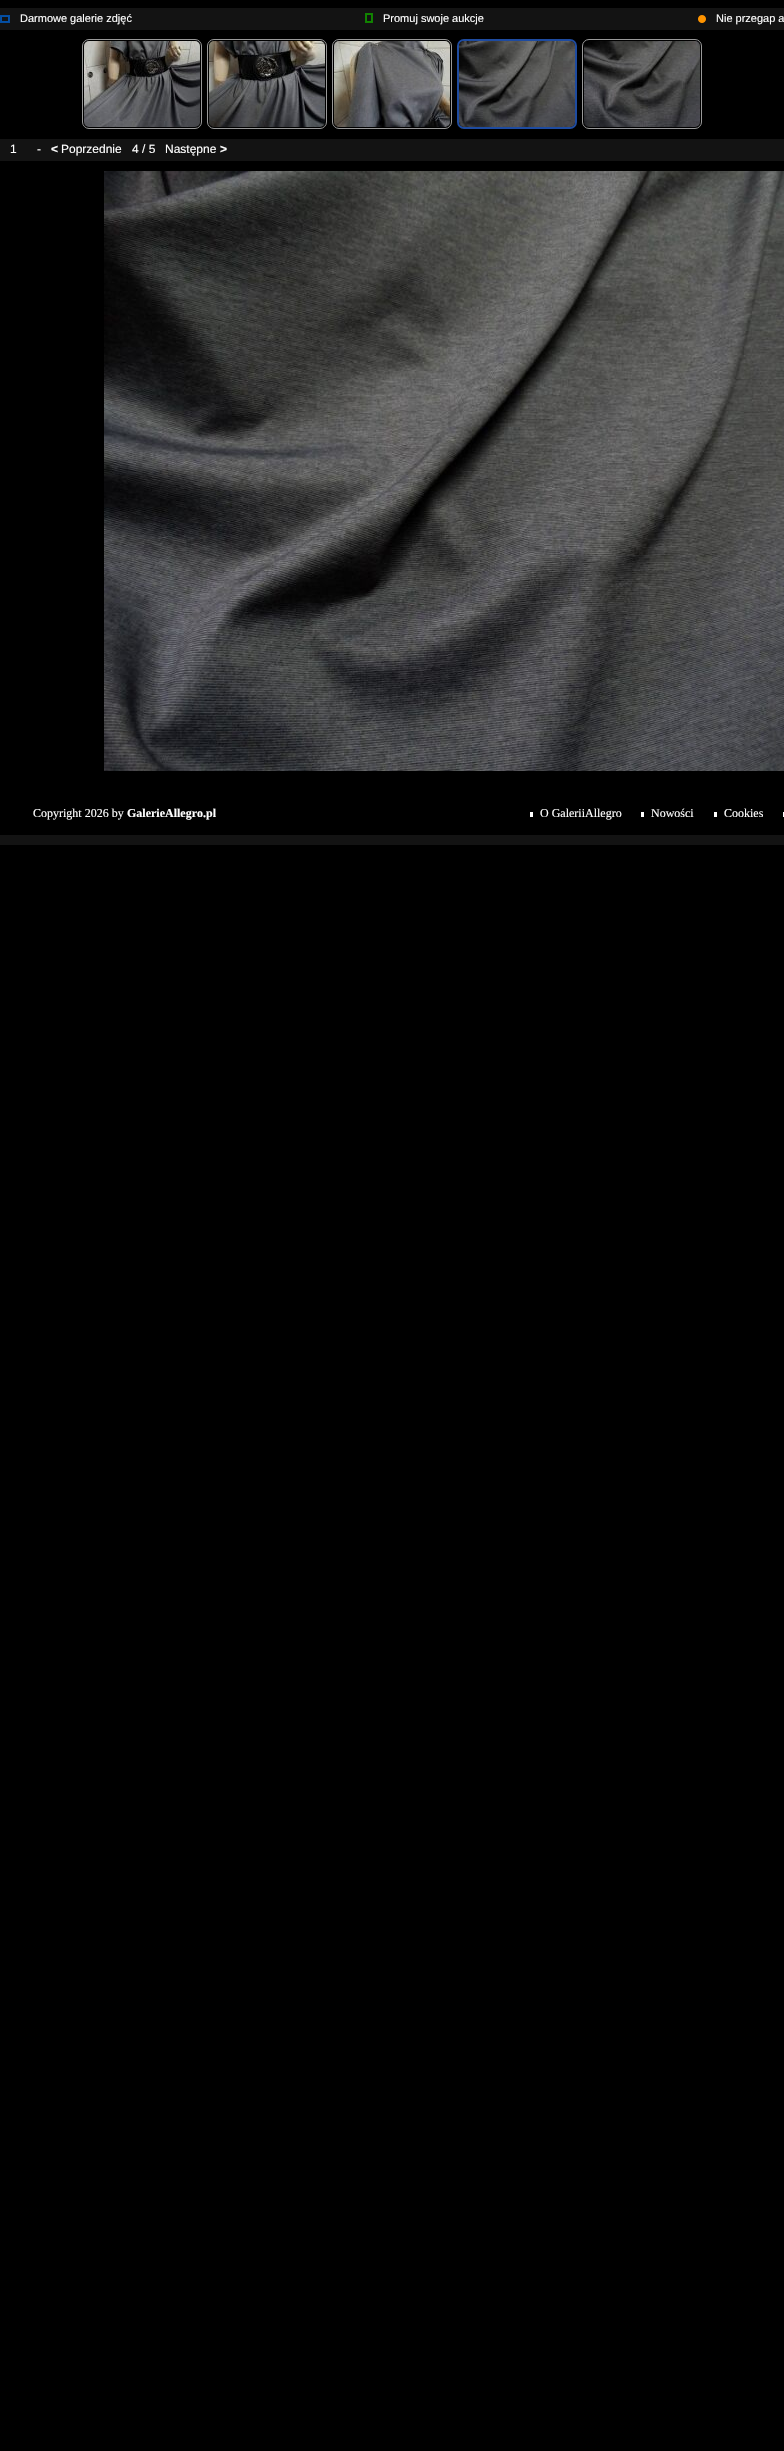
void draw(SkCanvas* canvas) {
	SkPaint paint;
	paint.setAntiAlias(true);
	canvas->clear(0xff000000);
	paint.setColor(0xff131313);
	canvas->drawRect(SkRect::MakeXYWH(0, 8, 784, 22), paint);
	paint.setStroke(true);
	paint.setStrokeWidth(1);
	paint.setColor(0xff999999);
	canvas->drawRoundRect(SkRect::MakeXYWH(82.5, 39.5, 119, 89), 6.5, 6.5, paint);
	canvas->drawRoundRect(SkRect::MakeXYWH(207.5, 39.5, 119, 89), 6.5, 6.5, paint);
	canvas->drawRoundRect(SkRect::MakeXYWH(332.5, 39.5, 119, 89), 6.5, 6.5, paint);
	paint.setStrokeWidth(2);
	paint.setColor(0xff1e4ba0);
	canvas->drawRoundRect(SkRect::MakeXYWH(458, 40, 118, 88), 6, 6, paint);
	paint.setStrokeWidth(1);
	paint.setColor(0xff999999);
	canvas->drawRoundRect(SkRect::MakeXYWH(582.5, 39.5, 119, 89), 6.5, 6.5, paint);
	canvas->drawImageRect(SkImages::DeferredFromEncodedData(SkData::MakeFromFileName("img1.png")), SkRect::MakeXYWH(84, 41, 116, 86), SkSamplingOptions());
	canvas->drawImageRect(SkImages::DeferredFromEncodedData(SkData::MakeFromFileName("img2.png")), SkRect::MakeXYWH(209, 41, 116, 86), SkSamplingOptions());
	canvas->drawImageRect(SkImages::DeferredFromEncodedData(SkData::MakeFromFileName("img3.png")), SkRect::MakeXYWH(334, 41, 116, 86), SkSamplingOptions());
	canvas->drawImageRect(SkImages::DeferredFromEncodedData(SkData::MakeFromFileName("img4.png")), SkRect::MakeXYWH(459, 41, 116, 86), SkSamplingOptions());
	canvas->drawImageRect(SkImages::DeferredFromEncodedData(SkData::MakeFromFileName("img5.png")), SkRect::MakeXYWH(584, 41, 116, 86), SkSamplingOptions());
	canvas->drawImageRect(SkImages::DeferredFromEncodedData(SkData::MakeFromFileName("img6.png")), SkRect::MakeXYWH(0, 139, 784, 706), SkSamplingOptions());
	canvas->drawImageRect(SkImages::DeferredFromEncodedData(SkData::MakeFromFileName("img7.png")), SkRect::MakeXYWH(0, 15, 10, 8), SkSamplingOptions());
	SkFont f1(fontMgr->matchFamilyStyle("Liberation Sans", SkFontStyle::Normal()), 11);
	f1.setSubpixel(true);
	paint.setStroke(false);
	paint.setColor(0xffffffff);
	canvas->drawString("Darmowe galerie zdjęć", 20, 22, f1, paint);
	canvas->drawImageRect(SkImages::DeferredFromEncodedData(SkData::MakeFromFileName("img8.png")), SkRect::MakeXYWH(365, 13, 8, 10), SkSamplingOptions());
	canvas->drawString("Promuj swoje aukcje", 383, 22, f1, paint);
	canvas->drawImageRect(SkImages::DeferredFromEncodedData(SkData::MakeFromFileName("img9.png")), SkRect::MakeXYWH(698, 15, 8, 8), SkSamplingOptions());
	canvas->drawString("Nie przegap a", 716, 22, f1, paint);
	SkFont f2(fontMgr->matchFamilyStyle("Liberation Sans", SkFontStyle::Normal()), 12);
	f2.setSubpixel(true);
	canvas->drawString("1", 10, 153, f2, paint);
	canvas->drawString("-", 37, 153, f2, paint);
	SkFont f3(fontMgr->matchFamilyStyle("Liberation Sans", SkFontStyle::Bold()), 12);
	f3.setSubpixel(true);
	canvas->drawString("<", 51, 153, f3, paint);
	canvas->drawString("Poprzednie", 61, 153, f2, paint);
	canvas->drawString("4 / 5", 132, 153, f2, paint);
	canvas->drawString("Następne", 165, 153, f2, paint);
	canvas->drawString(">", 220, 153, f3, paint);
	canvas->drawImageRect(SkImages::DeferredFromEncodedData(SkData::MakeFromFileName("img10.png")), SkRect::MakeXYWH(104, 171, 680, 600), SkSamplingOptions());
	SkFont f4(fontMgr->matchFamilyStyle("Liberation Serif", SkFontStyle::Normal()), 12);
	f4.setSubpixel(true);
	canvas->drawString("Copyright 2026 by", 33, 817, f4, paint);
	SkFont f5(fontMgr->matchFamilyStyle("Liberation Serif", SkFontStyle::Bold()), 12);
	f5.setSubpixel(true);
	canvas->drawString("GalerieAllegro.pl", 127, 817, f5, paint);
	canvas->drawRect(SkRect::MakeXYWH(530, 812, 3, 5), paint);
	canvas->drawString("O GaleriiAllegro", 540, 817, f4, paint);
	canvas->drawRect(SkRect::MakeXYWH(641, 812, 3, 5), paint);
	canvas->drawString("Nowości", 651, 817, f4, paint);
	canvas->drawRect(SkRect::MakeXYWH(714, 812, 3, 5), paint);
	canvas->drawString("Cookies", 724, 817, f4, paint);
	canvas->drawRect(SkRect::MakeXYWH(783, 812, 1, 5), paint);
}
